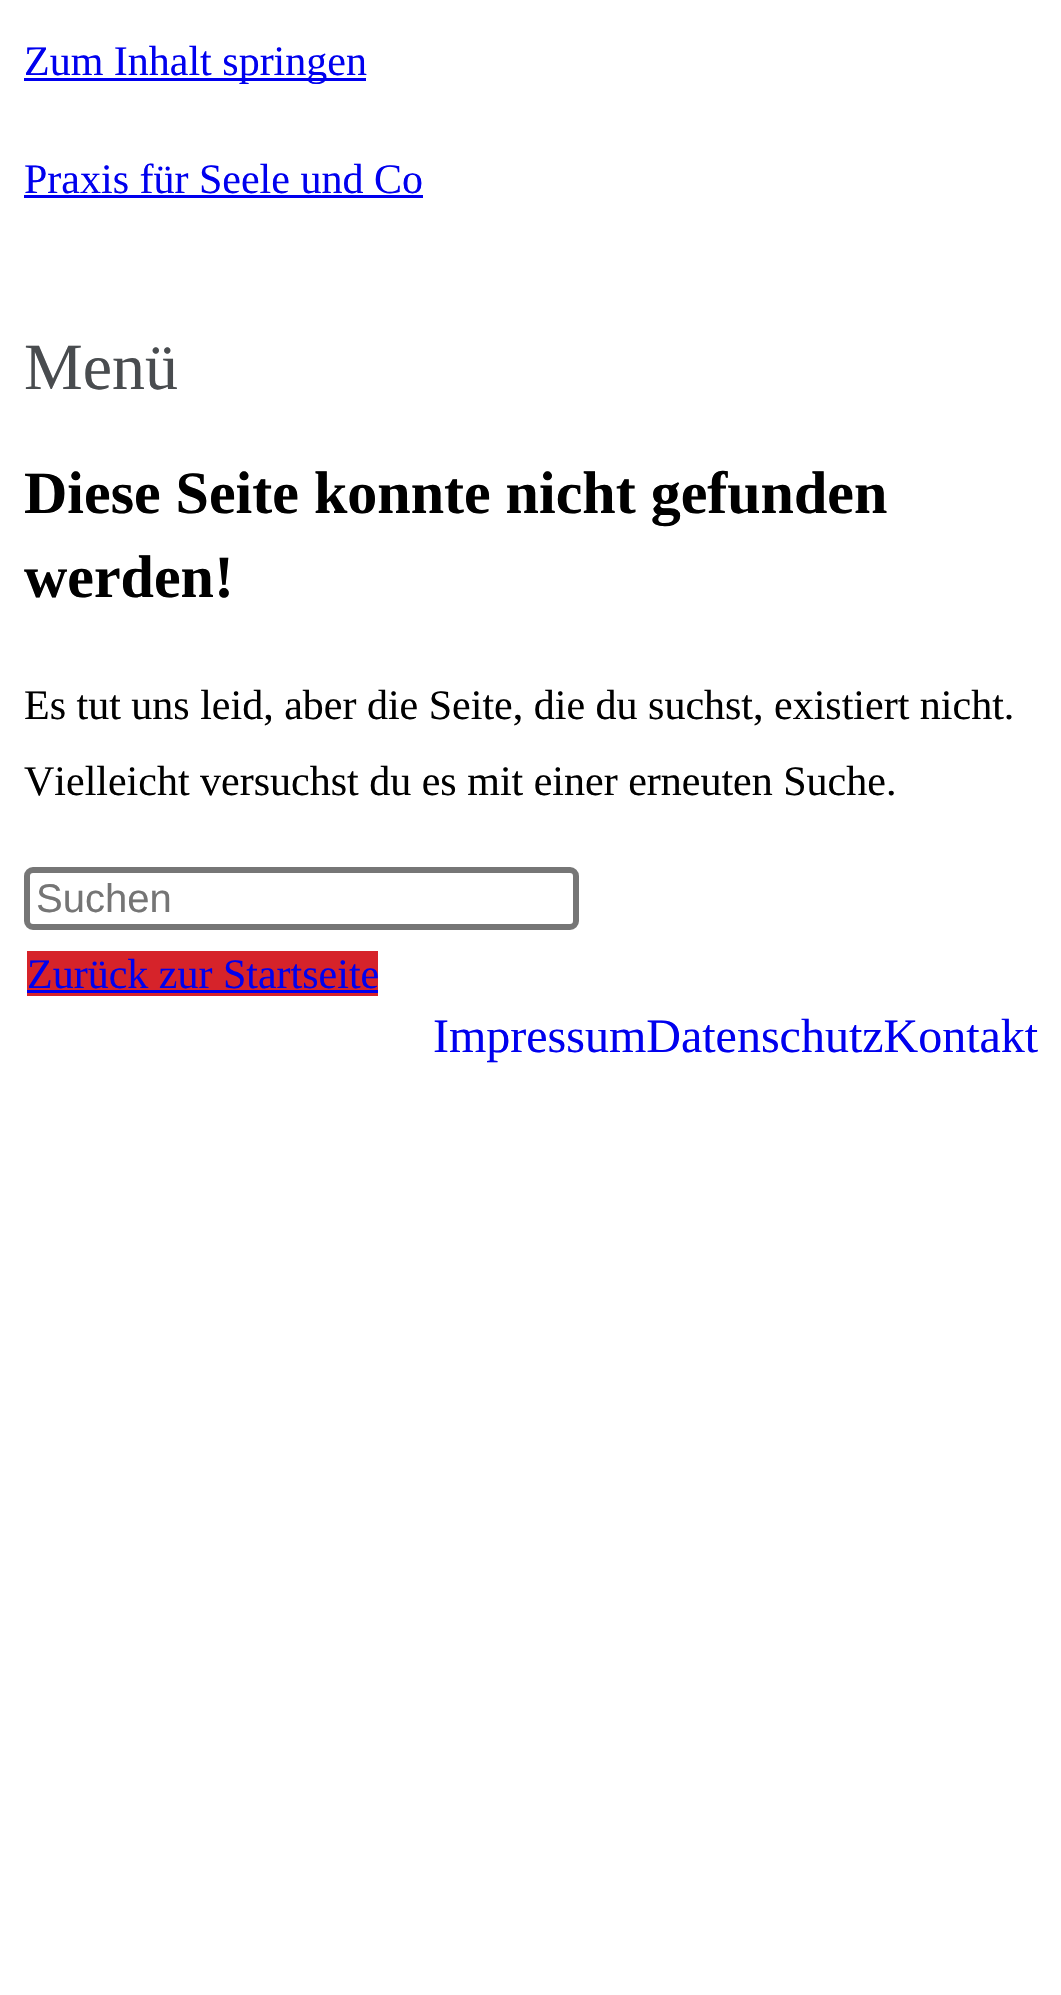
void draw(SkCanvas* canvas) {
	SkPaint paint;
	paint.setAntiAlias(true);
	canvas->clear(0xffffffff);
	paint.setColor(0xff0000ee);
	canvas->drawRect(SkRect::MakeXYWH(24, 78, 342, 3), paint);
	SkFont f1(fontMgr->matchFamilyStyle("Liberation Serif", SkFontStyle::Normal()), 42);
	f1.setSubpixel(true);
	canvas->drawString("Zum Inhalt springen", 24, 75, f1, paint);
	canvas->drawString("Praxis für Seele und Co", 24, 193, f1, paint);
	canvas->drawRect(SkRect::MakeXYWH(24, 195, 399, 3), paint);
	SkFont f2(fontMgr->matchFamilyStyle("Liberation Serif", SkFontStyle::Normal()), 66);
	f2.setSubpixel(true);
	paint.setColor(0xff494c4f);
	canvas->drawString("Menü", 24, 389, f2, paint);
	SkFont f3(fontMgr->matchFamilyStyle("Liberation Serif", SkFontStyle::Bold()), 60);
	f3.setSubpixel(true);
	paint.setColor(0xff000000);
	canvas->drawString("Diese Seite konnte nicht gefunden", 24, 513, f3, paint);
	canvas->drawString("werden!", 24, 597, f3, paint);
	canvas->drawString("Es tut uns leid, aber die Seite, die du suchst, existiert nicht.", 24, 719, f1, paint);
	canvas->drawString("Vielleicht versuchst du es mit einer erneuten Suche.", 24, 795, f1, paint);
	paint.setStroke(true);
	paint.setStrokeWidth(6);
	paint.setColor(0xff767676);
	canvas->drawRoundRect(SkRect::MakeXYWH(27, 870, 549, 57), 6, 6, paint);
	SkFont f4(fontMgr->matchFamilyStyle("Liberation Sans", SkFontStyle::Normal()), 40);
	f4.setSubpixel(true);
	paint.setStroke(false);
	paint.setColor(0xff757575);
	canvas->drawString("Suchen", 36, 912, f4, paint);
	paint.setColor(0xffd6232a);
	canvas->drawRect(SkRect::MakeXYWH(27, 951, 351, 45), paint);
	paint.setColor(0xff0000ee);
	canvas->drawString("Zurück zur Startseite", 27, 988, f1, paint);
	canvas->drawRect(SkRect::MakeXYWH(27, 990, 351, 3), paint);
	SkFont f5(fontMgr->matchFamilyStyle("Liberation Serif", SkFontStyle::Normal()), 48);
	f5.setSubpixel(true);
	canvas->drawString("ImpressumDatenschutzKontakt", 433, 1052, f5, paint);
}
